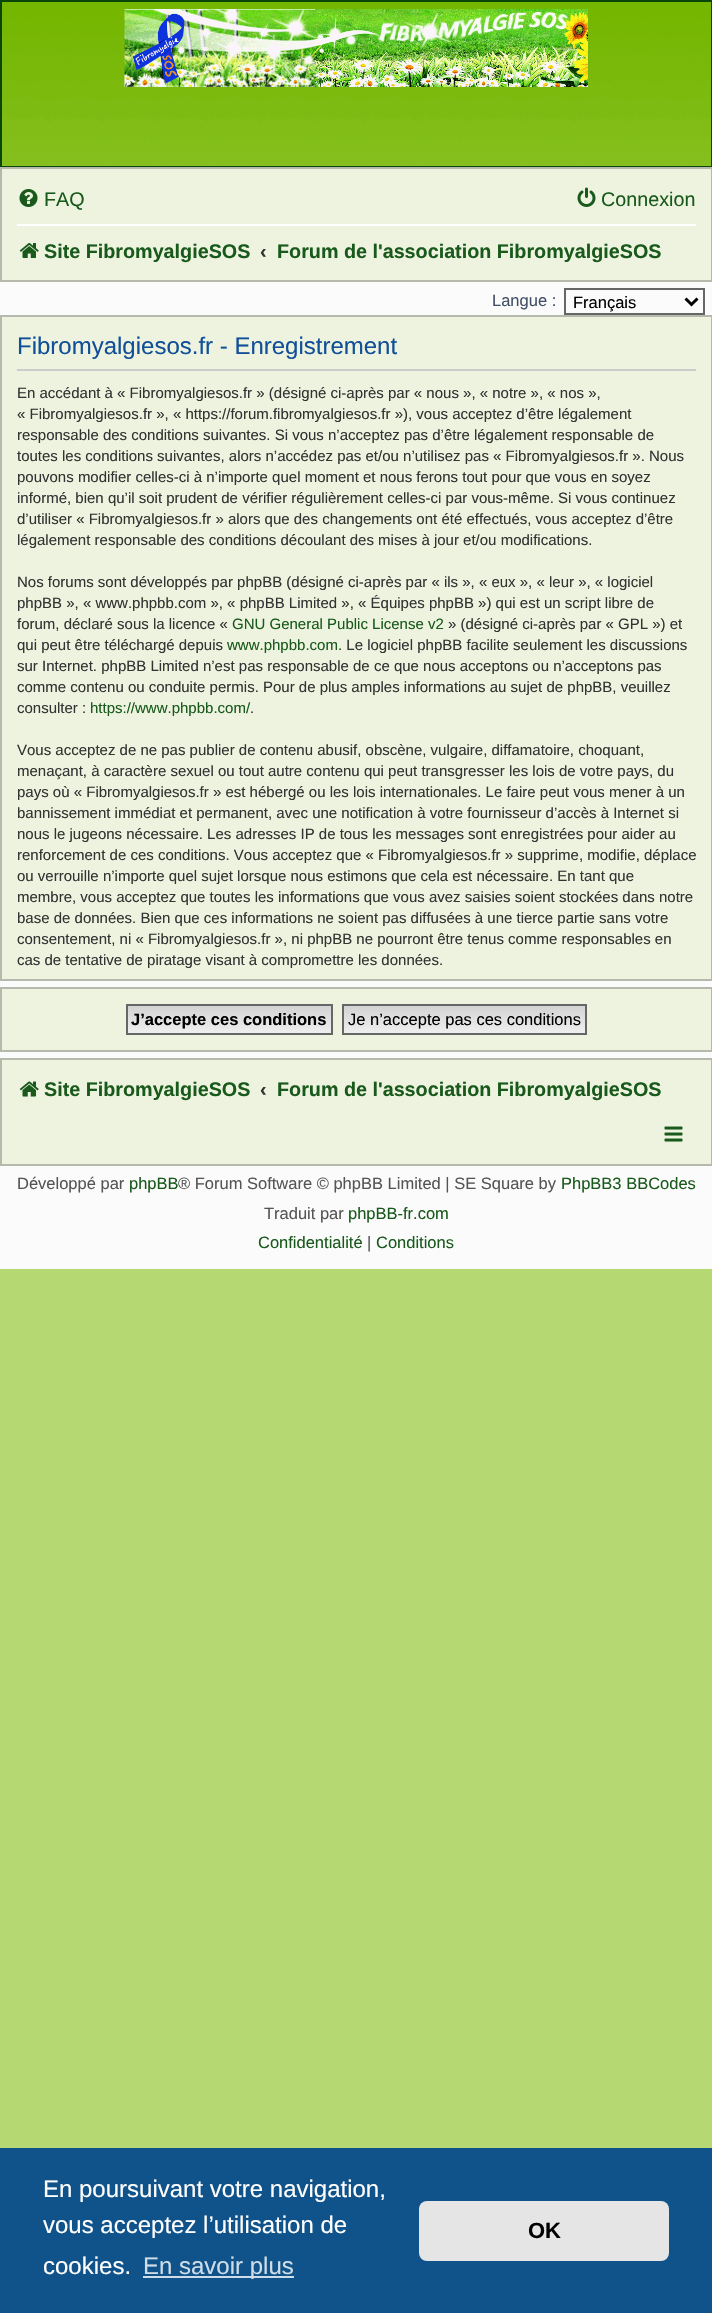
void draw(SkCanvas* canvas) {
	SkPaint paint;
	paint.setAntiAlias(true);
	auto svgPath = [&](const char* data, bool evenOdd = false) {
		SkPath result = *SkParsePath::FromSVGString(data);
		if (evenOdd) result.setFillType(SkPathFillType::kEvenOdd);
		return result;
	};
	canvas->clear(0xffb5d872);
	paint.setColor(0xfffbfbfb);
	canvas->drawRect(SkRect::MakeXYWH(0, 282, 712, 987), paint);
	canvas->drawImageRect(SkImages::DeferredFromEncodedData(SkData::MakeFromFileName("img1.png")), SkRect::MakeXYWH(2, 2, 709, 164), SkSamplingOptions());
	paint.setStroke(true);
	paint.setStrokeWidth(2);
	paint.setColor(0xff0a4509);
	canvas->drawRect(SkRect::MakeXYWH(1, 1, 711, 166), paint);
	canvas->drawImageRect(SkImages::DeferredFromEncodedData(SkData::MakeFromFileName("img2.png")), SkRect::MakeXYWH(124, 9, 464, 78), SkSamplingOptions());
	paint.setStroke(false);
	paint.setColor(0xffedf3de);
	canvas->drawRect(SkRect::MakeXYWH(1, 168, 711, 113), paint);
	paint.setStroke(true);
	paint.setColor(0xffb5b9ab);
	canvas->drawRect(SkRect::MakeXYWH(1, 168, 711, 113), paint);
	canvas->drawImageRect(SkImages::DeferredFromEncodedData(SkData::MakeFromFileName("img3.png")), SkRect::MakeXYWH(19, 189, 19, 18), SkSamplingOptions());
	SkFont f1(fontMgr->matchFamilyStyle("Liberation Sans", SkFontStyle::Normal()), 19.75);
	f1.setSubpixel(true);
	paint.setStroke(false);
	paint.setColor(0xff195a1c);
	canvas->drawString("FAQ", 44, 206, f1, paint);
	canvas->drawImageRect(SkImages::DeferredFromEncodedData(SkData::MakeFromFileName("img4.png")), SkRect::MakeXYWH(577, 187, 19, 20), SkSamplingOptions());
	canvas->drawString("Connexion", 601, 206, f1, paint);
	paint.setColor(0xffffffff);
	canvas->drawRect(SkRect::MakeXYWH(17, 224, 679, 2), paint);
	canvas->drawImageRect(SkImages::DeferredFromEncodedData(SkData::MakeFromFileName("img5.png")), SkRect::MakeXYWH(19, 243, 20, 15), SkSamplingOptions());
	SkFont f2(fontMgr->matchFamilyStyle("Liberation Sans", SkFontStyle::Bold()), 19.75);
	f2.setSubpixel(true);
	paint.setColor(0xff195a1c);
	canvas->drawString("Site FibromyalgieSOS", 44, 258, f2, paint);
	paint.setColor(0xff333333);
	canvas->drawString("‹", 260, 258, f2, paint);
	paint.setColor(0xff195a1c);
	canvas->drawString("Forum de l'association FibromyalgieSOS", 277, 258, f2, paint);
	SkFont f3(fontMgr->matchFamilyStyle("Liberation Sans", SkFontStyle::Normal()), 16.5);
	f3.setSubpixel(true);
	paint.setColor(0xff425067);
	canvas->drawString("Langue :", 492, 306, f3, paint);
	paint.setStroke(true);
	paint.setColor(0xff666666);
	canvas->drawRect(SkRect::MakeXYWH(565, 289, 139, 25), paint);
	paint.setStrokeWidth(3);
	paint.setColor(0xff000000);
	canvas->drawPath(svgPath("M685.5 298.5L691.5 304.5L697.5 298.5"), paint);
	paint.setStroke(false);
	canvas->drawString("Français", 573, 308, f3, paint);
	paint.setColor(0xffedf3de);
	canvas->drawRect(SkRect::MakeXYWH(1, 316, 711, 664), paint);
	paint.setStroke(true);
	paint.setStrokeWidth(2);
	paint.setColor(0xffb5b9ab);
	canvas->drawRect(SkRect::MakeXYWH(1, 316, 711, 664), paint);
	paint.setStroke(false);
	paint.setColor(0xffcccccc);
	canvas->drawRect(SkRect::MakeXYWH(17, 369, 679, 2), paint);
	SkFont f4(fontMgr->matchFamilyStyle("Liberation Sans", SkFontStyle::Normal()), 24);
	f4.setSubpixel(true);
	paint.setColor(0xff115098);
	canvas->drawString("Fibromyalgiesos.fr - Enregistrement", 17, 354, f4, paint);
	SkFont f5(fontMgr->matchFamilyStyle("Liberation Sans", SkFontStyle::Normal()), 15);
	f5.setSubpixel(true);
	paint.setColor(0xff333333);
	canvas->drawString("En accédant à « Fibromyalgiesos.fr » (désigné ci-après par « nous », « notre », « nos »,", 17, 398, f5, paint);
	canvas->drawString("« Fibromyalgiesos.fr », « https://forum.fibromyalgiesos.fr »), vous acceptez d’être légalement", 17, 419, f5, paint);
	canvas->drawString("responsable des conditions suivantes. Si vous n’acceptez pas d’être légalement responsable de", 17, 440, f5, paint);
	canvas->drawString("toutes les conditions suivantes, alors n’accédez pas et/ou n’utilisez pas « Fibromyalgiesos.fr ». Nous", 17, 461, f5, paint);
	canvas->drawString("pouvons modifier celles-ci à n’importe quel moment et nous ferons tout pour que vous en soyez", 17, 482, f5, paint);
	canvas->drawString("informé, bien qu’il soit prudent de vérifier régulièrement celles-ci par vous-même. Si vous continuez", 17, 503, f5, paint);
	canvas->drawString("d’utiliser « Fibromyalgiesos.fr » alors que des changements ont été effectués, vous acceptez d’être", 17, 524, f5, paint);
	canvas->drawString("légalement responsable des conditions découlant des mises à jour et/ou modifications.", 17, 545, f5, paint);
	canvas->drawString("Nos forums sont développés par phpBB (désigné ci-après par « ils », « eux », « leur », « logiciel", 17, 587, f5, paint);
	canvas->drawString("phpBB », « www.phpbb.com », « phpBB Limited », « Équipes phpBB ») qui est un script libre de", 17, 608, f5, paint);
	canvas->drawString("forum, déclaré sous la licence «", 17, 629, f5, paint);
	paint.setColor(0xff195a1c);
	canvas->drawString("GNU General Public License v2", 232, 629, f5, paint);
	paint.setColor(0xff333333);
	canvas->drawString("» (désigné ci-après par « GPL ») et", 448, 629, f5, paint);
	canvas->drawString("qui peut être téléchargé depuis", 17, 650, f5, paint);
	paint.setColor(0xff195a1c);
	canvas->drawString("www.phpbb.com", 227, 650, f5, paint);
	paint.setColor(0xff333333);
	canvas->drawString(". Le logiciel phpBB facilite seulement les discussions", 338, 650, f5, paint);
	canvas->drawString("sur Internet. phpBB Limited n’est pas responsable de ce que nous acceptons ou n’acceptons pas", 17, 671, f5, paint);
	canvas->drawString("comme contenu ou conduite permis. Pour de plus amples informations au sujet de phpBB, veuillez", 17, 692, f5, paint);
	canvas->drawString("consulter :", 17, 713, f5, paint);
	paint.setColor(0xff195a1c);
	canvas->drawString("https://www.phpbb.com/", 90, 713, f5, paint);
	paint.setColor(0xff333333);
	canvas->drawString(".", 250, 713, f5, paint);
	canvas->drawString("Vous acceptez de ne pas publier de contenu abusif, obscène, vulgaire, diffamatoire, choquant,", 17, 755, f5, paint);
	canvas->drawString("menaçant, à caractère sexuel ou tout autre contenu qui peut transgresser les lois de votre pays, du", 17, 776, f5, paint);
	canvas->drawString("pays où « Fibromyalgiesos.fr » est hébergé ou les lois internationales. Le faire peut vous mener à un", 17, 797, f5, paint);
	canvas->drawString("bannissement immédiat et permanent, avec une notification à votre fournisseur d’accès à Internet si", 17, 818, f5, paint);
	canvas->drawString("nous le jugeons nécessaire. Les adresses IP de tous les messages sont enregistrées pour aider au", 17, 839, f5, paint);
	canvas->drawString("renforcement de ces conditions. Vous acceptez que « Fibromyalgiesos.fr » supprime, modifie, déplace", 17, 860, f5, paint);
	canvas->drawString("ou verrouille n’importe quel sujet lorsque nous estimons que cela est nécessaire. En tant que", 17, 881, f5, paint);
	canvas->drawString("membre, vous acceptez que toutes les informations que vous avez saisies soient stockées dans notre", 17, 902, f5, paint);
	canvas->drawString("base de données. Bien que ces informations ne soient pas diffusées à une tierce partie sans votre", 17, 923, f5, paint);
	canvas->drawString("consentement, ni « Fibromyalgiesos.fr », ni phpBB ne pourront être tenus comme responsables en", 17, 944, f5, paint);
	canvas->drawString("cas de tentative de piratage visant à compromettre les données.", 17, 965, f5, paint);
	paint.setColor(0xffedf3de);
	canvas->drawRect(SkRect::MakeXYWH(1, 988, 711, 63), paint);
	paint.setStroke(true);
	paint.setColor(0xffb5b9ab);
	canvas->drawRect(SkRect::MakeXYWH(1, 988, 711, 63), paint);
	paint.setStroke(false);
	{
		const SkColor colors[] = {0xffd2d2d2, 0xffefefef};
		const float stops[] = {0, 1};
		const SkPoint ends[] = {{230, 1005}, {230, 1034}};
		paint.setShader(SkGradientShader::MakeLinear(ends, colors, stops, 2, SkTileMode::kClamp));
		paint.setAlpha(255);
	}
	canvas->drawRect(SkRect::MakeXYWH(128, 1006, 203, 27), paint);
	paint.setStroke(true);
	paint.setShader(nullptr);
	paint.setColor(0xff666666);
	canvas->drawRect(SkRect::MakeXYWH(127, 1005, 205, 29), paint);
	SkFont f6(fontMgr->matchFamilyStyle("Liberation Sans", SkFontStyle::Bold()), 16.5);
	f6.setSubpixel(true);
	paint.setStroke(false);
	paint.setColor(0xff000000);
	canvas->drawString("J’accepte ces conditions", 131, 1025, f6, paint);
	{
		const SkColor colors[] = {0xffd2d2d2, 0xffefefef};
		const float stops[] = {0, 1};
		const SkPoint ends[] = {{464, 1005}, {464, 1034}};
		paint.setShader(SkGradientShader::MakeLinear(ends, colors, stops, 2, SkTileMode::kClamp));
		paint.setAlpha(255);
	}
	canvas->drawRect(SkRect::MakeXYWH(344, 1006, 241, 27), paint);
	paint.setStroke(true);
	paint.setShader(nullptr);
	paint.setColor(0xff666666);
	canvas->drawRect(SkRect::MakeXYWH(343, 1005, 243, 29), paint);
	paint.setStroke(false);
	paint.setColor(0xff000000);
	canvas->drawString("Je n’accepte pas ces conditions", 348, 1025, f3, paint);
	paint.setColor(0xffedf3de);
	canvas->drawRect(SkRect::MakeXYWH(1, 1059, 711, 106), paint);
	paint.setStroke(true);
	paint.setColor(0xffb5b9ab);
	canvas->drawRect(SkRect::MakeXYWH(1, 1059, 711, 106), paint);
	canvas->drawImageRect(SkImages::DeferredFromEncodedData(SkData::MakeFromFileName("img6.png")), SkRect::MakeXYWH(19, 1081, 20, 16), SkSamplingOptions());
	paint.setStroke(false);
	paint.setColor(0xff195a1c);
	canvas->drawString("Site FibromyalgieSOS", 44, 1096, f2, paint);
	paint.setColor(0xff333333);
	canvas->drawString("‹", 260, 1096, f2, paint);
	paint.setColor(0xff195a1c);
	canvas->drawString("Forum de l'association FibromyalgieSOS", 277, 1096, f2, paint);
	canvas->drawImageRect(SkImages::DeferredFromEncodedData(SkData::MakeFromFileName("img7.png")), SkRect::MakeXYWH(664, 1126, 19, 16), SkSamplingOptions());
	paint.setColor(0xff555555);
	canvas->drawString("Développé par", 17, 1189, f3, paint);
	paint.setColor(0xff195a1c);
	canvas->drawString("phpBB", 129, 1189, f3, paint);
	paint.setColor(0xff555555);
	canvas->drawString("® Forum Software © phpBB Limited | SE Square by", 178, 1189, f3, paint);
	paint.setColor(0xff195a1c);
	canvas->drawString("PhpBB3 BBCodes", 561, 1189, f3, paint);
	paint.setColor(0xff555555);
	canvas->drawString("Traduit par", 264, 1219, f3, paint);
	paint.setColor(0xff195a1c);
	canvas->drawString("phpBB-fr.com", 348, 1219, f3, paint);
	canvas->drawString("Confidentialité", 258, 1248, f3, paint);
	paint.setColor(0xff555555);
	canvas->drawString("|", 367, 1248, f3, paint);
	paint.setColor(0xff195a1c);
	canvas->drawString("Conditions", 376, 1248, f3, paint);
	paint.setColor(0xff0f538a);
	canvas->drawRect(SkRect::MakeXYWH(0, 2148, 712, 165), paint);
	paint.setColor(0xffffffff);
	canvas->drawString("En poursuivant votre navigation,", 43, 2197, f4, paint);
	canvas->drawString("vous acceptez l’utilisation de", 43, 2233, f4, paint);
	canvas->drawString("cookies.", 43, 2274, f4, paint);
	paint.setColor(0xffcfdde8);
	canvas->drawRect(SkRect::MakeXYWH(143, 2276, 151, 2), paint);
	canvas->drawString("En savoir plus", 143, 2274, f4, paint);
	paint.setColor(0xffe5e5e5);
	canvas->drawRoundRect(SkRect::MakeXYWH(419, 2201, 250, 60), 8, 8, paint);
	SkFont f7(fontMgr->matchFamilyStyle("Liberation Sans", SkFontStyle::Bold()), 22);
	f7.setSubpixel(true);
	paint.setColor(0xff000000);
	canvas->drawString("OK", 528, 2238, f7, paint);
}
